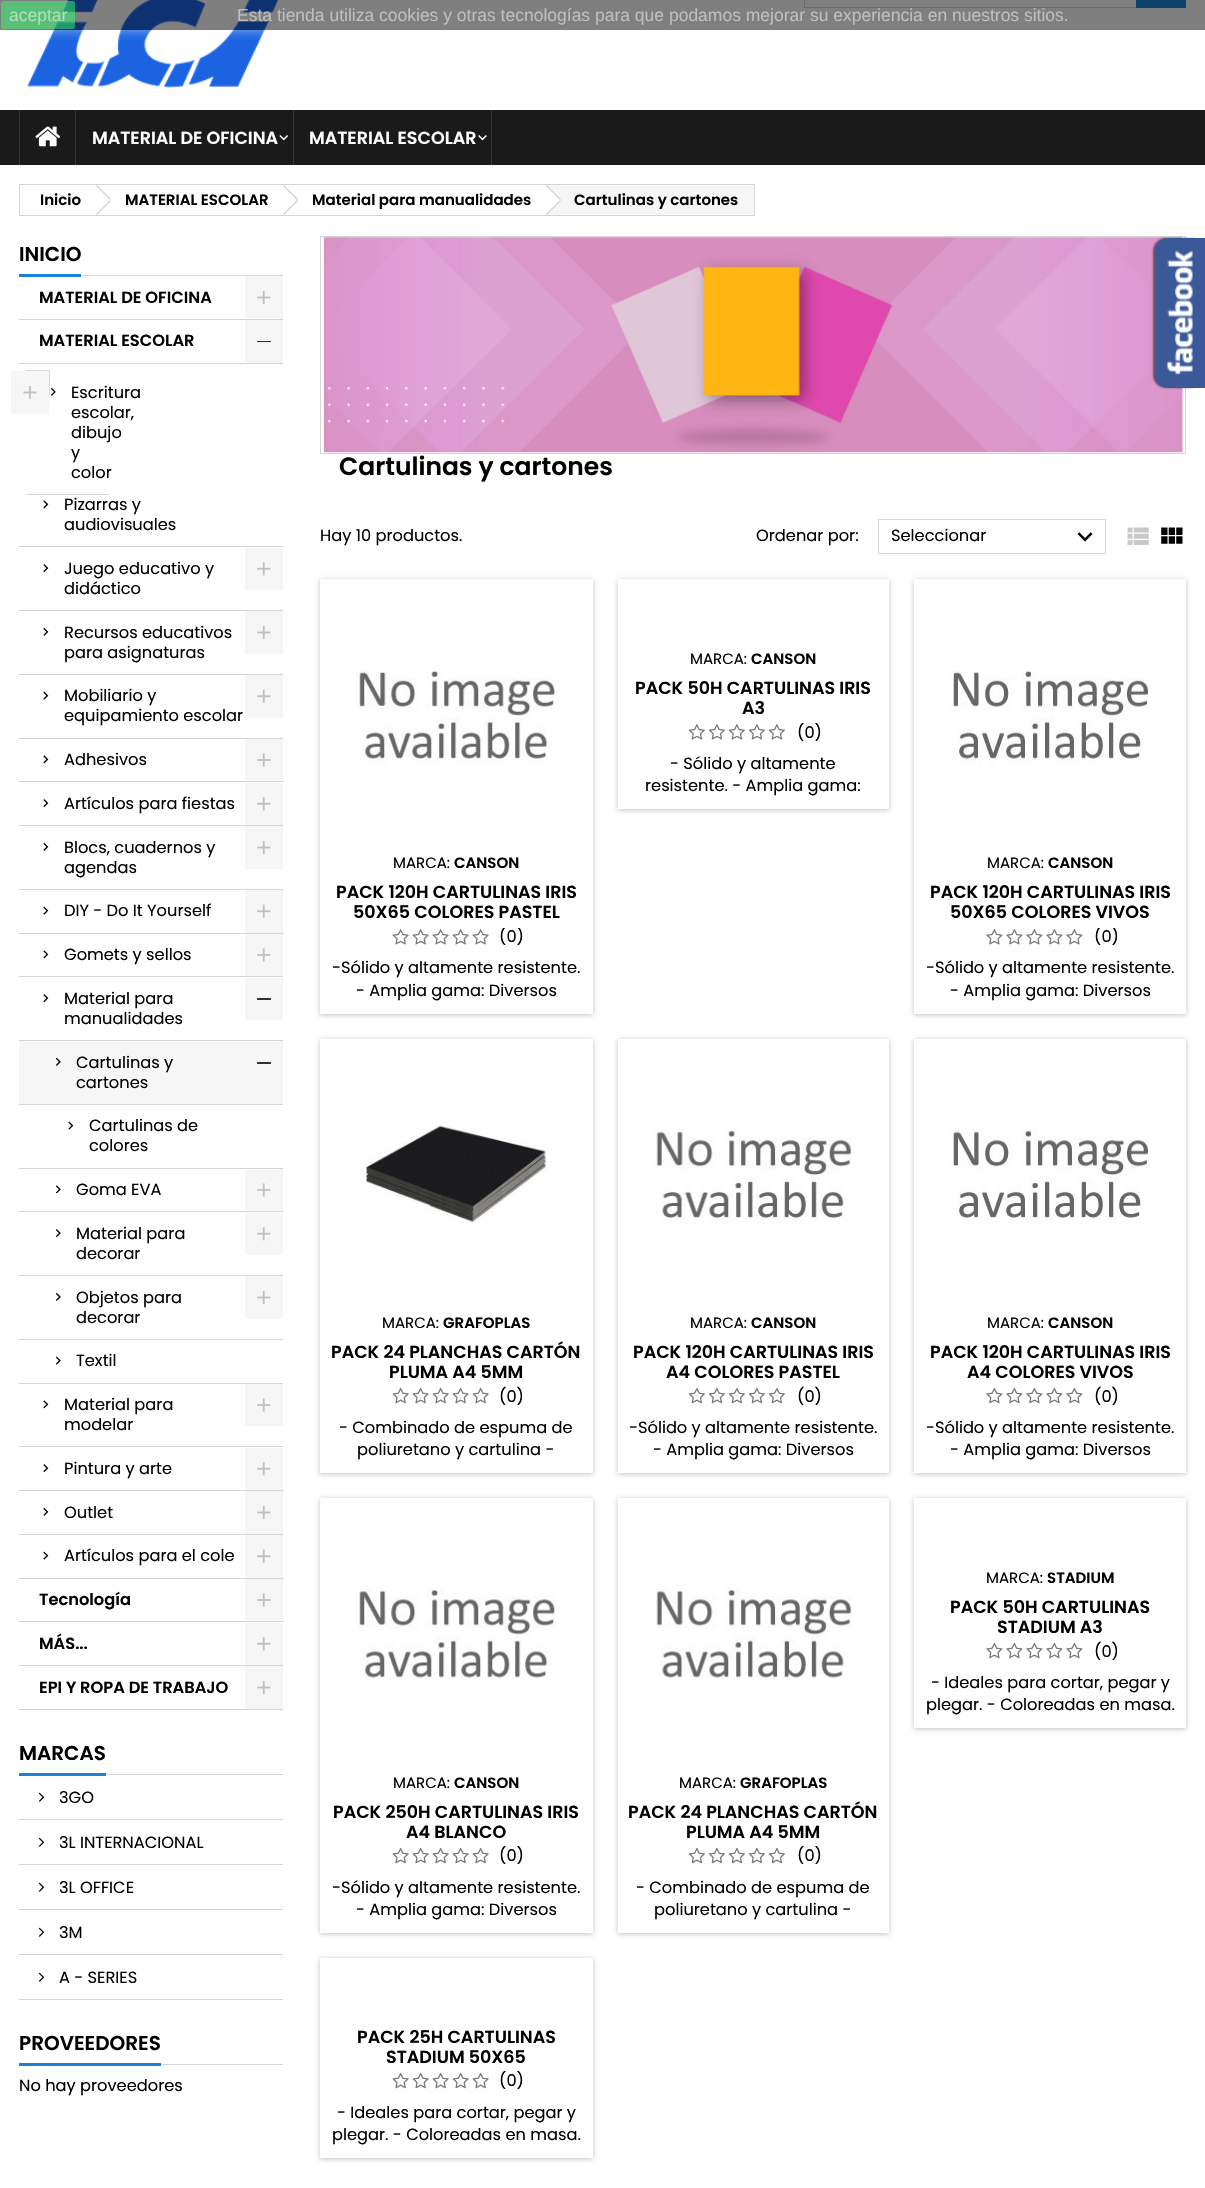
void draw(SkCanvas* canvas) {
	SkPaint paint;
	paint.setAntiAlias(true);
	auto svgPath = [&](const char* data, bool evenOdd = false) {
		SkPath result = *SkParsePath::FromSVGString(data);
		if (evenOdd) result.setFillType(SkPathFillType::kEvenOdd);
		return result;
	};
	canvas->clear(0xffffffff);
	canvas->drawImageRect(SkImages::DeferredFromEncodedData(SkData::MakeFromFileName("img1.png")), SkRect::MakeXYWH(27, 0, 251, 88), SkSamplingOptions());
	paint.setStroke(true);
	paint.setStrokeWidth(1);
	paint.setColor(0xffd6d4d4);
	canvas->drawRect(SkRect::MakeXYWH(804.5, -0.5, 381, 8), paint);
	paint.setStroke(false);
	paint.setColor(0xff1b82d6);
	canvas->drawRect(SkRect::MakeXYWH(1136, 0, 50, 8), paint);
	canvas->save();
	canvas->clipRect(SkRect::MakeXYWH(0, 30, 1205, 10));
	paint.setColor(0x80ffffff);
	paint.setMaskFilter(SkMaskFilter::MakeBlur(kNormal_SkBlurStyle, 6));
	canvas->drawRect(SkRect::MakeXYWH(0, 0, 1205, 30), paint);
	paint.setMaskFilter(nullptr);
	canvas->restore();
	paint.setColor(0x80000000);
	canvas->drawRect(SkRect::MakeXYWH(0, 0, 1205, 30), paint);
	paint.setColor(0x8033ff70);
	canvas->drawRoundRect(SkRect::MakeXYWH(1, 1, 74, 28), 2.5, 2.5, paint);
	SkFont f1(fontMgr->matchFamilyStyle("Liberation Sans", SkFontStyle::Normal()), 17.5);
	f1.setSubpixel(true);
	paint.setColor(0xffacdfbb);
	canvas->drawString("aceptar", 9, 21, f1, paint);
	paint.setColor(0xffbfbfbf);
	canvas->drawString("Esta tienda utiliza cookies y otras tecnologías para que podamos mejorar su experiencia en nuestros sitios.", 237, 21, f1, paint);
	paint.setColor(0xff1b1a1b);
	canvas->drawRect(SkRect::MakeXYWH(0, 110, 1205, 55), paint);
	paint.setColor(0xff363636);
	canvas->drawRect(SkRect::MakeXYWH(19, 110, 1, 55), paint);
	canvas->drawImageRect(SkImages::DeferredFromEncodedData(SkData::MakeFromFileName("img2.png")), SkRect::MakeXYWH(35, 126, 26, 21), SkSamplingOptions());
	canvas->drawRect(SkRect::MakeXYWH(75, 110, 1, 55), paint);
	SkFont f2(fontMgr->matchFamilyStyle("Poppins", SkFontStyle(600, SkFontStyle::kNormal_Width, SkFontStyle::kUpright_Slant)), 17.5);
	f2.setSubpixel(true);
	paint.setColor(0xffffffff);
	canvas->drawString("MATERIAL DE OFICINA", 92, 144, f2, paint);
	canvas->drawImageRect(SkImages::DeferredFromEncodedData(SkData::MakeFromFileName("img3.png")), SkRect::MakeXYWH(279, 135, 9, 6), SkSamplingOptions());
	paint.setColor(0xff363636);
	canvas->drawRect(SkRect::MakeXYWH(491, 110, 1, 55), paint);
	canvas->drawRect(SkRect::MakeXYWH(293, 110, 1, 55), paint);
	paint.setColor(0xffffffff);
	canvas->drawString("MATERIAL ESCOLAR", 309, 144, f2, paint);
	canvas->drawImageRect(SkImages::DeferredFromEncodedData(SkData::MakeFromFileName("img4.png")), SkRect::MakeXYWH(478, 135, 9, 6), SkSamplingOptions());
	paint.setStroke(true);
	paint.setColor(0xffd6d4d4);
	canvas->drawRect(SkRect::MakeXYWH(19.5, 184.5, 735, 31), paint);
	SkFont f3(fontMgr->matchFamilyStyle("Poppins", SkFontStyle(600, SkFontStyle::kNormal_Width, SkFontStyle::kUpright_Slant)), 15);
	f3.setSubpixel(true);
	paint.setStroke(false);
	paint.setColor(0xff000000);
	canvas->drawString("Inicio", 40, 205, f3, paint);
	paint.setColor(0xffd6d4d4);
	canvas->drawPath(svgPath("M97 185L111 199L110 200L96 186ZM110 200L111 201L97 215L96 214Z"), paint);
	paint.setColor(0xff000000);
	canvas->drawString("MATERIAL ESCOLAR", 125, 205, f3, paint);
	paint.setColor(0xffd6d4d4);
	canvas->drawPath(svgPath("M284 185L298 199L297 200L283 186ZM297 200L298 201L284 215L283 214Z"), paint);
	paint.setColor(0xff000000);
	canvas->drawString("Material para manualidades", 312, 205, f3, paint);
	paint.setColor(0xfff6f6f6);
	canvas->drawRect(SkRect::MakeXYWH(548, 185, 206, 30), paint);
	paint.setColor(0xffffffff);
	canvas->drawPath(svgPath("M547.5 186L560 198C561 199 561 201 560 202L547.5 214C546.5 215 545 215 544 214L531.5 202C531 201 531 199 531.5 198L544 186C545 185 546.5 185 547.5 186Z"), paint);
	paint.setColor(0xffd6d4d4);
	canvas->drawPath(svgPath("M547 185L561 199L560 200L546 186ZM560 200L561 201L547 215L546 214Z"), paint);
	paint.setColor(0xff000000);
	canvas->drawString("Cartulinas y cartones", 574, 205, f3, paint);
	paint.setColor(0xffd6d4d4);
	canvas->drawRect(SkRect::MakeXYWH(81, 275, 202, 1), paint);
	paint.setColor(0xff1b82d6);
	canvas->drawRect(SkRect::MakeXYWH(19, 274, 62, 3), paint);
	SkFont f4(fontMgr->matchFamilyStyle("Poppins", SkFontStyle(600, SkFontStyle::kNormal_Width, SkFontStyle::kUpright_Slant)), 20);
	f4.setSubpixel(true);
	paint.setColor(0xff000000);
	canvas->drawString("INICIO", 19, 261, f4, paint);
	paint.setColor(0xffd6d4d4);
	canvas->drawRect(SkRect::MakeXYWH(19, 319, 264, 1), paint);
	SkFont f5(fontMgr->matchFamilyStyle("Poppins", SkFontStyle(600, SkFontStyle::kNormal_Width, SkFontStyle::kUpright_Slant)), 16.25);
	f5.setSubpixel(true);
	paint.setColor(0xff000000);
	canvas->drawString("MATERIAL DE OFICINA", 39, 303, f5, paint);
	paint.setColor(0xfff6f6f6);
	canvas->drawRect(SkRect::MakeXYWH(245, 276, 38, 43), paint);
	canvas->drawImageRect(SkImages::DeferredFromEncodedData(SkData::MakeFromFileName("img5.png")), SkRect::MakeXYWH(257, 291, 14, 13), SkSamplingOptions());
	paint.setColor(0xffd6d4d4);
	canvas->drawRect(SkRect::MakeXYWH(19, 363, 264, 1), paint);
	paint.setColor(0xff000000);
	canvas->drawString("MATERIAL ESCOLAR", 39, 346, f5, paint);
	paint.setColor(0xfff6f6f6);
	canvas->drawRect(SkRect::MakeXYWH(245, 320, 38, 43), paint);
	paint.setColor(0xff333333);
	canvas->drawRect(SkRect::MakeXYWH(257, 341, 14, 1), paint);
	paint.setStroke(true);
	paint.setColor(0xffd9d9d9);
	canvas->drawRect(SkRect::MakeXYWH(25.5, 370.5, 24, 24), paint);
	paint.setStroke(false);
	paint.setColor(0xfff6f6f6);
	canvas->drawRect(SkRect::MakeXYWH(11, 371, 38, 43), paint);
	canvas->drawImageRect(SkImages::DeferredFromEncodedData(SkData::MakeFromFileName("img6.png")), SkRect::MakeXYWH(23, 386, 14, 13), SkSamplingOptions());
	paint.setColor(0xffd6d4d4);
	canvas->drawRect(SkRect::MakeXYWH(26, 494, 83, 1), paint);
	canvas->drawImageRect(SkImages::DeferredFromEncodedData(SkData::MakeFromFileName("img7.png")), SkRect::MakeXYWH(50, 387, 6, 9), SkSamplingOptions());
	SkFont f6(fontMgr->matchFamilyStyle("Poppins", SkFontStyle::Normal()), 16.25);
	f6.setSubpixel(true);
	paint.setColor(0xff000000);
	canvas->drawString("Escritura", 71, 398, f6, paint);
	canvas->drawString("escolar,", 71, 418, f6, paint);
	canvas->drawString("dibujo", 71, 438, f6, paint);
	canvas->drawString("y", 71, 458, f6, paint);
	canvas->drawString("color", 71, 478, f6, paint);
	paint.setColor(0xffd6d4d4);
	canvas->drawRect(SkRect::MakeXYWH(19, 546, 264, 1), paint);
	canvas->drawImageRect(SkImages::DeferredFromEncodedData(SkData::MakeFromFileName("img8.png")), SkRect::MakeXYWH(43, 500, 6, 9), SkSamplingOptions());
	paint.setColor(0xff000000);
	canvas->drawString("Pizarras y", 64, 510, f6, paint);
	canvas->drawString("audiovisuales", 64, 530, f6, paint);
	paint.setColor(0xffd6d4d4);
	canvas->drawRect(SkRect::MakeXYWH(19, 610, 264, 1), paint);
	canvas->drawImageRect(SkImages::DeferredFromEncodedData(SkData::MakeFromFileName("img9.png")), SkRect::MakeXYWH(43, 564, 6, 9), SkSamplingOptions());
	paint.setColor(0xff000000);
	canvas->drawString("Juego educativo y", 64, 574, f6, paint);
	canvas->drawString("didáctico", 64, 594, f6, paint);
	paint.setColor(0xfff6f6f6);
	canvas->drawRect(SkRect::MakeXYWH(245, 548, 38, 42), paint);
	canvas->drawImageRect(SkImages::DeferredFromEncodedData(SkData::MakeFromFileName("img10.png")), SkRect::MakeXYWH(257, 562, 14, 14), SkSamplingOptions());
	paint.setColor(0xffd6d4d4);
	canvas->drawRect(SkRect::MakeXYWH(19, 674, 264, 1), paint);
	canvas->drawImageRect(SkImages::DeferredFromEncodedData(SkData::MakeFromFileName("img11.png")), SkRect::MakeXYWH(43, 627, 6, 9), SkSamplingOptions());
	paint.setColor(0xff000000);
	canvas->drawString("Recursos educativos", 64, 638, f6, paint);
	canvas->drawString("para asignaturas", 64, 658, f6, paint);
	paint.setColor(0xfff6f6f6);
	canvas->drawRect(SkRect::MakeXYWH(245, 611, 38, 43), paint);
	canvas->drawImageRect(SkImages::DeferredFromEncodedData(SkData::MakeFromFileName("img5.png")), SkRect::MakeXYWH(257, 626, 14, 13), SkSamplingOptions());
	paint.setColor(0xffd6d4d4);
	canvas->drawRect(SkRect::MakeXYWH(19, 738, 264, 1), paint);
	canvas->drawImageRect(SkImages::DeferredFromEncodedData(SkData::MakeFromFileName("img12.png")), SkRect::MakeXYWH(43, 691, 6, 9), SkSamplingOptions());
	paint.setColor(0xff000000);
	canvas->drawString("Mobiliario y", 64, 701, f6, paint);
	canvas->drawString("equipamiento escolar", 64, 721, f6, paint);
	paint.setColor(0xfff6f6f6);
	canvas->drawRect(SkRect::MakeXYWH(245, 675, 38, 43), paint);
	canvas->drawImageRect(SkImages::DeferredFromEncodedData(SkData::MakeFromFileName("img13.png")), SkRect::MakeXYWH(257, 689, 14, 14), SkSamplingOptions());
	paint.setColor(0xffd6d4d4);
	canvas->drawRect(SkRect::MakeXYWH(19, 781, 264, 1), paint);
	canvas->drawImageRect(SkImages::DeferredFromEncodedData(SkData::MakeFromFileName("img8.png")), SkRect::MakeXYWH(43, 755, 6, 9), SkSamplingOptions());
	paint.setColor(0xff000000);
	canvas->drawString("Adhesivos", 64, 765, f6, paint);
	paint.setColor(0xfff6f6f6);
	canvas->drawRect(SkRect::MakeXYWH(245, 739, 38, 42), paint);
	canvas->drawImageRect(SkImages::DeferredFromEncodedData(SkData::MakeFromFileName("img14.png")), SkRect::MakeXYWH(257, 753, 14, 14), SkSamplingOptions());
	paint.setColor(0xffd6d4d4);
	canvas->drawRect(SkRect::MakeXYWH(19, 825, 264, 1), paint);
	canvas->drawImageRect(SkImages::DeferredFromEncodedData(SkData::MakeFromFileName("img9.png")), SkRect::MakeXYWH(43, 799, 6, 9), SkSamplingOptions());
	paint.setColor(0xff000000);
	canvas->drawString("Artículos para fiestas", 64, 809, f6, paint);
	paint.setColor(0xfff6f6f6);
	canvas->drawRect(SkRect::MakeXYWH(245, 783, 38, 42), paint);
	canvas->drawImageRect(SkImages::DeferredFromEncodedData(SkData::MakeFromFileName("img10.png")), SkRect::MakeXYWH(257, 797, 14, 14), SkSamplingOptions());
	paint.setColor(0xffd6d4d4);
	canvas->drawRect(SkRect::MakeXYWH(19, 889, 264, 1), paint);
	canvas->drawImageRect(SkImages::DeferredFromEncodedData(SkData::MakeFromFileName("img11.png")), SkRect::MakeXYWH(43, 842, 6, 9), SkSamplingOptions());
	paint.setColor(0xff000000);
	canvas->drawString("Blocs, cuadernos y", 64, 853, f6, paint);
	canvas->drawString("agendas", 64, 873, f6, paint);
	paint.setColor(0xfff6f6f6);
	canvas->drawRect(SkRect::MakeXYWH(245, 826, 38, 43), paint);
	canvas->drawImageRect(SkImages::DeferredFromEncodedData(SkData::MakeFromFileName("img5.png")), SkRect::MakeXYWH(257, 841, 14, 13), SkSamplingOptions());
	paint.setColor(0xffd6d4d4);
	canvas->drawRect(SkRect::MakeXYWH(19, 933, 264, 1), paint);
	canvas->drawImageRect(SkImages::DeferredFromEncodedData(SkData::MakeFromFileName("img12.png")), SkRect::MakeXYWH(43, 906, 6, 9), SkSamplingOptions());
	paint.setColor(0xff000000);
	canvas->drawString("DIY - Do It Yourself", 64, 916, f6, paint);
	paint.setColor(0xfff6f6f6);
	canvas->drawRect(SkRect::MakeXYWH(245, 890, 38, 43), paint);
	canvas->drawImageRect(SkImages::DeferredFromEncodedData(SkData::MakeFromFileName("img13.png")), SkRect::MakeXYWH(257, 904, 14, 14), SkSamplingOptions());
	paint.setColor(0xffd6d4d4);
	canvas->drawRect(SkRect::MakeXYWH(19, 976, 264, 1), paint);
	canvas->drawImageRect(SkImages::DeferredFromEncodedData(SkData::MakeFromFileName("img8.png")), SkRect::MakeXYWH(43, 950, 6, 9), SkSamplingOptions());
	paint.setColor(0xff000000);
	canvas->drawString("Gomets y sellos", 64, 960, f6, paint);
	paint.setColor(0xfff6f6f6);
	canvas->drawRect(SkRect::MakeXYWH(245, 934, 38, 42), paint);
	canvas->drawImageRect(SkImages::DeferredFromEncodedData(SkData::MakeFromFileName("img14.png")), SkRect::MakeXYWH(257, 948, 14, 14), SkSamplingOptions());
	paint.setColor(0xffd6d4d4);
	canvas->drawRect(SkRect::MakeXYWH(19, 1040, 264, 1), paint);
	canvas->drawImageRect(SkImages::DeferredFromEncodedData(SkData::MakeFromFileName("img9.png")), SkRect::MakeXYWH(43, 994, 6, 9), SkSamplingOptions());
	paint.setColor(0xff000000);
	canvas->drawString("Material para", 64, 1004, f6, paint);
	canvas->drawString("manualidades", 64, 1024, f6, paint);
	paint.setColor(0xfff6f6f6);
	canvas->drawRect(SkRect::MakeXYWH(245, 978, 38, 42), paint);
	paint.setColor(0xff333333);
	canvas->drawRect(SkRect::MakeXYWH(257, 998, 14, 2), paint);
	paint.setColor(0xfff6f6f6);
	canvas->drawRect(SkRect::MakeXYWH(19, 1041, 264, 63), paint);
	paint.setColor(0xffd6d4d4);
	canvas->drawRect(SkRect::MakeXYWH(19, 1104, 264, 1), paint);
	canvas->drawImageRect(SkImages::DeferredFromEncodedData(SkData::MakeFromFileName("img15.png")), SkRect::MakeXYWH(55, 1057, 6, 9), SkSamplingOptions());
	paint.setColor(0xff000000);
	canvas->drawString("Cartulinas y", 76, 1068, f6, paint);
	canvas->drawString("cartones", 76, 1088, f6, paint);
	paint.setColor(0xff333333);
	canvas->drawRect(SkRect::MakeXYWH(257, 1062, 14, 2), paint);
	paint.setColor(0xffd6d4d4);
	canvas->drawRect(SkRect::MakeXYWH(19, 1168, 264, 1), paint);
	canvas->drawImageRect(SkImages::DeferredFromEncodedData(SkData::MakeFromFileName("img12.png")), SkRect::MakeXYWH(68, 1121, 6, 9), SkSamplingOptions());
	paint.setColor(0xff000000);
	canvas->drawString("Cartulinas de", 89, 1131, f6, paint);
	canvas->drawString("colores", 89, 1151, f6, paint);
	paint.setColor(0xffd6d4d4);
	canvas->drawRect(SkRect::MakeXYWH(19, 1211, 264, 1), paint);
	canvas->drawImageRect(SkImages::DeferredFromEncodedData(SkData::MakeFromFileName("img16.png")), SkRect::MakeXYWH(55, 1185, 6, 9), SkSamplingOptions());
	paint.setColor(0xff000000);
	canvas->drawString("Goma EVA", 76, 1195, f6, paint);
	paint.setColor(0xfff6f6f6);
	canvas->drawRect(SkRect::MakeXYWH(245, 1169, 38, 42), paint);
	canvas->drawImageRect(SkImages::DeferredFromEncodedData(SkData::MakeFromFileName("img14.png")), SkRect::MakeXYWH(257, 1183, 14, 14), SkSamplingOptions());
	paint.setColor(0xffd6d4d4);
	canvas->drawRect(SkRect::MakeXYWH(19, 1275, 264, 1), paint);
	canvas->drawImageRect(SkImages::DeferredFromEncodedData(SkData::MakeFromFileName("img17.png")), SkRect::MakeXYWH(55, 1229, 6, 9), SkSamplingOptions());
	paint.setColor(0xff000000);
	canvas->drawString("Material para", 76, 1239, f6, paint);
	canvas->drawString("decorar", 76, 1259, f6, paint);
	paint.setColor(0xfff6f6f6);
	canvas->drawRect(SkRect::MakeXYWH(245, 1213, 38, 42), paint);
	canvas->drawImageRect(SkImages::DeferredFromEncodedData(SkData::MakeFromFileName("img10.png")), SkRect::MakeXYWH(257, 1227, 14, 14), SkSamplingOptions());
	paint.setColor(0xffd6d4d4);
	canvas->drawRect(SkRect::MakeXYWH(19, 1339, 264, 1), paint);
	canvas->drawImageRect(SkImages::DeferredFromEncodedData(SkData::MakeFromFileName("img7.png")), SkRect::MakeXYWH(55, 1292, 6, 9), SkSamplingOptions());
	paint.setColor(0xff000000);
	canvas->drawString("Objetos para", 76, 1303, f6, paint);
	canvas->drawString("decorar", 76, 1323, f6, paint);
	paint.setColor(0xfff6f6f6);
	canvas->drawRect(SkRect::MakeXYWH(245, 1276, 38, 43), paint);
	canvas->drawImageRect(SkImages::DeferredFromEncodedData(SkData::MakeFromFileName("img5.png")), SkRect::MakeXYWH(257, 1291, 14, 13), SkSamplingOptions());
	paint.setColor(0xffd6d4d4);
	canvas->drawRect(SkRect::MakeXYWH(19, 1383, 264, 1), paint);
	canvas->drawImageRect(SkImages::DeferredFromEncodedData(SkData::MakeFromFileName("img18.png")), SkRect::MakeXYWH(55, 1356, 6, 9), SkSamplingOptions());
	paint.setColor(0xff000000);
	canvas->drawString("Textil", 76, 1366, f6, paint);
	paint.setColor(0xffd6d4d4);
	canvas->drawRect(SkRect::MakeXYWH(19, 1446, 264, 1), paint);
	canvas->drawImageRect(SkImages::DeferredFromEncodedData(SkData::MakeFromFileName("img8.png")), SkRect::MakeXYWH(43, 1400, 6, 9), SkSamplingOptions());
	paint.setColor(0xff000000);
	canvas->drawString("Material para", 64, 1410, f6, paint);
	canvas->drawString("modelar", 64, 1430, f6, paint);
	paint.setColor(0xfff6f6f6);
	canvas->drawRect(SkRect::MakeXYWH(245, 1384, 38, 42), paint);
	canvas->drawImageRect(SkImages::DeferredFromEncodedData(SkData::MakeFromFileName("img14.png")), SkRect::MakeXYWH(257, 1398, 14, 14), SkSamplingOptions());
	paint.setColor(0xffd6d4d4);
	canvas->drawRect(SkRect::MakeXYWH(19, 1490, 264, 1), paint);
	canvas->drawImageRect(SkImages::DeferredFromEncodedData(SkData::MakeFromFileName("img9.png")), SkRect::MakeXYWH(43, 1464, 6, 9), SkSamplingOptions());
	paint.setColor(0xff000000);
	canvas->drawString("Pintura y arte", 64, 1474, f6, paint);
	paint.setColor(0xfff6f6f6);
	canvas->drawRect(SkRect::MakeXYWH(245, 1448, 38, 42), paint);
	canvas->drawImageRect(SkImages::DeferredFromEncodedData(SkData::MakeFromFileName("img10.png")), SkRect::MakeXYWH(257, 1462, 14, 14), SkSamplingOptions());
	paint.setColor(0xffd6d4d4);
	canvas->drawRect(SkRect::MakeXYWH(19, 1534, 264, 1), paint);
	canvas->drawImageRect(SkImages::DeferredFromEncodedData(SkData::MakeFromFileName("img11.png")), SkRect::MakeXYWH(43, 1507, 6, 9), SkSamplingOptions());
	paint.setColor(0xff000000);
	canvas->drawString("Outlet", 64, 1518, f6, paint);
	paint.setColor(0xfff6f6f6);
	canvas->drawRect(SkRect::MakeXYWH(245, 1491, 38, 43), paint);
	canvas->drawImageRect(SkImages::DeferredFromEncodedData(SkData::MakeFromFileName("img5.png")), SkRect::MakeXYWH(257, 1506, 14, 13), SkSamplingOptions());
	paint.setColor(0xffd6d4d4);
	canvas->drawRect(SkRect::MakeXYWH(19, 1578, 264, 1), paint);
	canvas->drawImageRect(SkImages::DeferredFromEncodedData(SkData::MakeFromFileName("img12.png")), SkRect::MakeXYWH(43, 1551, 6, 9), SkSamplingOptions());
	paint.setColor(0xff000000);
	canvas->drawString("Artículos para el cole", 64, 1561, f6, paint);
	paint.setColor(0xfff6f6f6);
	canvas->drawRect(SkRect::MakeXYWH(245, 1535, 38, 43), paint);
	canvas->drawImageRect(SkImages::DeferredFromEncodedData(SkData::MakeFromFileName("img13.png")), SkRect::MakeXYWH(257, 1549, 14, 14), SkSamplingOptions());
	paint.setColor(0xffd6d4d4);
	canvas->drawRect(SkRect::MakeXYWH(19, 1621, 264, 1), paint);
	paint.setColor(0xff000000);
	canvas->drawString("Tecnología", 39, 1605, f5, paint);
	paint.setColor(0xfff6f6f6);
	canvas->drawRect(SkRect::MakeXYWH(245, 1579, 38, 42), paint);
	canvas->drawImageRect(SkImages::DeferredFromEncodedData(SkData::MakeFromFileName("img14.png")), SkRect::MakeXYWH(257, 1593, 14, 14), SkSamplingOptions());
	paint.setColor(0xffd6d4d4);
	canvas->drawRect(SkRect::MakeXYWH(19, 1665, 264, 1), paint);
	paint.setColor(0xff000000);
	canvas->drawString("MÁS...", 39, 1649, f5, paint);
	paint.setColor(0xfff6f6f6);
	canvas->drawRect(SkRect::MakeXYWH(245, 1623, 38, 42), paint);
	canvas->drawImageRect(SkImages::DeferredFromEncodedData(SkData::MakeFromFileName("img10.png")), SkRect::MakeXYWH(257, 1637, 14, 14), SkSamplingOptions());
	paint.setColor(0xffd6d4d4);
	canvas->drawRect(SkRect::MakeXYWH(19, 1709, 264, 1), paint);
	paint.setColor(0xff000000);
	canvas->drawString("EPI Y ROPA DE TRABAJO", 39, 1693, f5, paint);
	paint.setColor(0xfff6f6f6);
	canvas->drawRect(SkRect::MakeXYWH(245, 1666, 38, 43), paint);
	canvas->drawImageRect(SkImages::DeferredFromEncodedData(SkData::MakeFromFileName("img5.png")), SkRect::MakeXYWH(257, 1681, 14, 13), SkSamplingOptions());
	paint.setColor(0xffd6d4d4);
	canvas->drawRect(SkRect::MakeXYWH(106, 1774, 177, 1), paint);
	paint.setColor(0xff1b82d6);
	canvas->drawRect(SkRect::MakeXYWH(19, 1773, 87, 3), paint);
	paint.setColor(0xff000000);
	canvas->drawString("MARCAS", 19, 1760, f4, paint);
	paint.setColor(0xffd6d4d4);
	canvas->drawRect(SkRect::MakeXYWH(19, 1819, 264, 1), paint);
	canvas->drawImageRect(SkImages::DeferredFromEncodedData(SkData::MakeFromFileName("img19.png")), SkRect::MakeXYWH(38, 1792, 7, 10), SkSamplingOptions());
	paint.setColor(0xff000000);
	canvas->drawString("3GO", 59, 1803, f6, paint);
	paint.setColor(0xffd6d4d4);
	canvas->drawRect(SkRect::MakeXYWH(19, 1864, 264, 1), paint);
	canvas->drawImageRect(SkImages::DeferredFromEncodedData(SkData::MakeFromFileName("img19.png")), SkRect::MakeXYWH(38, 1837, 7, 10), SkSamplingOptions());
	paint.setColor(0xff000000);
	canvas->drawString("3L INTERNACIONAL", 59, 1848, f6, paint);
	paint.setColor(0xffd6d4d4);
	canvas->drawRect(SkRect::MakeXYWH(19, 1909, 264, 1), paint);
	canvas->drawImageRect(SkImages::DeferredFromEncodedData(SkData::MakeFromFileName("img19.png")), SkRect::MakeXYWH(38, 1882, 7, 10), SkSamplingOptions());
	paint.setColor(0xff000000);
	canvas->drawString("3L OFFICE", 59, 1893, f6, paint);
	paint.setColor(0xffd6d4d4);
	canvas->drawRect(SkRect::MakeXYWH(19, 1954, 264, 1), paint);
	canvas->drawImageRect(SkImages::DeferredFromEncodedData(SkData::MakeFromFileName("img19.png")), SkRect::MakeXYWH(38, 1927, 7, 10), SkSamplingOptions());
	paint.setColor(0xff000000);
	canvas->drawString("3M", 59, 1938, f6, paint);
	paint.setColor(0xffd6d4d4);
	canvas->drawRect(SkRect::MakeXYWH(19, 1999, 264, 1), paint);
	canvas->drawImageRect(SkImages::DeferredFromEncodedData(SkData::MakeFromFileName("img19.png")), SkRect::MakeXYWH(38, 1972, 7, 10), SkSamplingOptions());
	paint.setColor(0xff000000);
	canvas->drawString("A - SERIES", 59, 1983, f6, paint);
	paint.setColor(0xffd6d4d4);
	canvas->drawRect(SkRect::MakeXYWH(161, 2064, 122, 1), paint);
	paint.setColor(0xff1b82d6);
	canvas->drawRect(SkRect::MakeXYWH(19, 2063, 142, 3), paint);
	paint.setColor(0xff000000);
	canvas->drawString("PROVEEDORES", 19, 2050, f4, paint);
	canvas->drawString("No hay proveedores", 19, 2091, f6, paint);
	paint.setStroke(true);
	paint.setColor(0xffd6d4d4);
	canvas->drawRect(SkRect::MakeXYWH(320.5, 236.5, 865, 217), paint);
	canvas->drawImageRect(SkImages::DeferredFromEncodedData(SkData::MakeFromFileName("img20.png")), SkRect::MakeXYWH(322, 237, 862, 216), SkSamplingOptions());
	SkFont f7(fontMgr->matchFamilyStyle("Poppins", SkFontStyle(600, SkFontStyle::kNormal_Width, SkFontStyle::kUpright_Slant)), 25);
	f7.setSubpixel(true);
	paint.setStroke(false);
	paint.setColor(0xff000000);
	canvas->drawString("Cartulinas y cartones", 339, 475, f7, paint);
	canvas->drawString("Hay 10 productos.", 320, 541, f6, paint);
	canvas->drawString("Ordenar por:", 756, 541, f6, paint);
	paint.setStroke(true);
	paint.setColor(0xffd6d4d4);
	canvas->drawRect(SkRect::MakeXYWH(878.5, 519.5, 227, 34), paint);
	paint.setStroke(false);
	paint.setColor(0xff000000);
	canvas->drawString("Seleccionar", 891, 541, f6, paint);
	canvas->drawImageRect(SkImages::DeferredFromEncodedData(SkData::MakeFromFileName("img21.png")), SkRect::MakeXYWH(1077, 532, 16, 10), SkSamplingOptions());
	canvas->drawImageRect(SkImages::DeferredFromEncodedData(SkData::MakeFromFileName("img22.png")), SkRect::MakeXYWH(1127, 527, 22, 18), SkSamplingOptions());
	canvas->drawImageRect(SkImages::DeferredFromEncodedData(SkData::MakeFromFileName("img23.png")), SkRect::MakeXYWH(1161, 527, 22, 17), SkSamplingOptions());
	paint.setColor(0x3d000000);
	paint.setMaskFilter(SkMaskFilter::MakeBlur(kNormal_SkBlurStyle, 2.5));
	canvas->drawRect(SkRect::MakeXYWH(618, 580, 271, 230), paint);
	paint.setMaskFilter(nullptr);
	paint.setColor(0xffffffff);
	canvas->drawRect(SkRect::MakeXYWH(618, 579, 271, 230), paint);
	SkFont f8(fontMgr->matchFamilyStyle("Poppins", SkFontStyle::Normal()), 15);
	f8.setSubpixel(true);
	paint.setColor(0xff000000);
	canvas->drawString("MARCA:", 690, 664, f8, paint);
	canvas->drawString("CANSON", 751, 664, f3, paint);
	canvas->drawString("PACK 50H CARTULINAS IRIS", 635, 694, f2, paint);
	canvas->drawString("A3", 742, 714, f2, paint);
	canvas->drawImageRect(SkImages::DeferredFromEncodedData(SkData::MakeFromFileName("img24.png")), SkRect::MakeXYWH(688, 724, 17, 16), SkSamplingOptions());
	canvas->drawImageRect(SkImages::DeferredFromEncodedData(SkData::MakeFromFileName("img24.png")), SkRect::MakeXYWH(708, 724, 17, 16), SkSamplingOptions());
	canvas->drawImageRect(SkImages::DeferredFromEncodedData(SkData::MakeFromFileName("img24.png")), SkRect::MakeXYWH(728, 724, 17, 16), SkSamplingOptions());
	canvas->drawImageRect(SkImages::DeferredFromEncodedData(SkData::MakeFromFileName("img24.png")), SkRect::MakeXYWH(748, 724, 17, 16), SkSamplingOptions());
	canvas->drawImageRect(SkImages::DeferredFromEncodedData(SkData::MakeFromFileName("img24.png")), SkRect::MakeXYWH(768, 724, 17, 16), SkSamplingOptions());
	canvas->save();
	canvas->clipRect(SkRect::MakeXYWH(794, 723, 27, 20));
	canvas->drawString("(0)", 797, 738, f6, paint);
	canvas->restore();
	canvas->drawString("- Sólido y altamente", 670, 769, f6, paint);
	canvas->drawString("resistente. - Amplia gama:", 645, 791, f6, paint);
	paint.setColor(0x3d000000);
	paint.setMaskFilter(SkMaskFilter::MakeBlur(kNormal_SkBlurStyle, 2.5));
	canvas->drawRect(SkRect::MakeXYWH(320, 580, 273, 435), paint);
	paint.setMaskFilter(nullptr);
	paint.setColor(0xffffffff);
	canvas->drawRect(SkRect::MakeXYWH(320, 579, 273, 435), paint);
	canvas->drawImageRect(SkImages::DeferredFromEncodedData(SkData::MakeFromFileName("img25.png")), SkRect::MakeXYWH(356, 670, 199, 94), SkSamplingOptions());
	paint.setColor(0xff000000);
	canvas->drawString("MARCA:", 393, 868, f8, paint);
	canvas->drawString("CANSON", 454, 868, f3, paint);
	canvas->drawString("PACK 120H CARTULINAS IRIS", 336, 898, f2, paint);
	canvas->drawString("50X65 COLORES PASTEL", 353, 918, f2, paint);
	canvas->drawImageRect(SkImages::DeferredFromEncodedData(SkData::MakeFromFileName("img26.png")), SkRect::MakeXYWH(392, 929, 17, 16), SkSamplingOptions());
	canvas->drawImageRect(SkImages::DeferredFromEncodedData(SkData::MakeFromFileName("img26.png")), SkRect::MakeXYWH(412, 929, 17, 16), SkSamplingOptions());
	canvas->drawImageRect(SkImages::DeferredFromEncodedData(SkData::MakeFromFileName("img26.png")), SkRect::MakeXYWH(432, 929, 17, 16), SkSamplingOptions());
	canvas->drawImageRect(SkImages::DeferredFromEncodedData(SkData::MakeFromFileName("img26.png")), SkRect::MakeXYWH(452, 929, 17, 16), SkSamplingOptions());
	canvas->drawImageRect(SkImages::DeferredFromEncodedData(SkData::MakeFromFileName("img26.png")), SkRect::MakeXYWH(472, 929, 17, 16), SkSamplingOptions());
	canvas->save();
	canvas->clipRect(SkRect::MakeXYWH(498, 928, 27, 20));
	canvas->drawString("(0)", 499, 942, f6, paint);
	canvas->restore();
	canvas->drawString("-Sólido y altamente resistente.", 332, 973, f6, paint);
	canvas->drawString("- Amplia gama: Diversos", 356, 996, f6, paint);
	paint.setColor(0x3d000000);
	paint.setMaskFilter(SkMaskFilter::MakeBlur(kNormal_SkBlurStyle, 2.5));
	canvas->drawRect(SkRect::MakeXYWH(914, 580, 272, 435), paint);
	paint.setMaskFilter(nullptr);
	paint.setColor(0xffffffff);
	canvas->drawRect(SkRect::MakeXYWH(914, 579, 272, 435), paint);
	canvas->drawImageRect(SkImages::DeferredFromEncodedData(SkData::MakeFromFileName("img27.png")), SkRect::MakeXYWH(949, 670, 200, 96), SkSamplingOptions());
	paint.setColor(0xff000000);
	canvas->drawString("MARCA:", 987, 868, f8, paint);
	canvas->drawString("CANSON", 1048, 868, f3, paint);
	canvas->drawString("PACK 120H CARTULINAS IRIS", 930, 898, f2, paint);
	canvas->drawString("50X65 COLORES VIVOS", 950, 918, f2, paint);
	canvas->drawImageRect(SkImages::DeferredFromEncodedData(SkData::MakeFromFileName("img28.png")), SkRect::MakeXYWH(986, 929, 17, 16), SkSamplingOptions());
	canvas->drawImageRect(SkImages::DeferredFromEncodedData(SkData::MakeFromFileName("img28.png")), SkRect::MakeXYWH(1006, 929, 17, 16), SkSamplingOptions());
	canvas->drawImageRect(SkImages::DeferredFromEncodedData(SkData::MakeFromFileName("img28.png")), SkRect::MakeXYWH(1026, 929, 17, 16), SkSamplingOptions());
	canvas->drawImageRect(SkImages::DeferredFromEncodedData(SkData::MakeFromFileName("img28.png")), SkRect::MakeXYWH(1046, 929, 17, 16), SkSamplingOptions());
	canvas->drawImageRect(SkImages::DeferredFromEncodedData(SkData::MakeFromFileName("img28.png")), SkRect::MakeXYWH(1066, 929, 17, 16), SkSamplingOptions());
	canvas->save();
	canvas->clipRect(SkRect::MakeXYWH(1091, 928, 28, 20));
	canvas->drawString("(0)", 1094, 942, f6, paint);
	canvas->restore();
	canvas->drawString("-Sólido y altamente resistente.", 926, 973, f6, paint);
	canvas->drawString("- Amplia gama: Diversos", 950, 996, f6, paint);
	paint.setColor(0x3d000000);
	paint.setMaskFilter(SkMaskFilter::MakeBlur(kNormal_SkBlurStyle, 2.5));
	canvas->drawRect(SkRect::MakeXYWH(320, 1040, 273, 434), paint);
	paint.setMaskFilter(nullptr);
	paint.setColor(0xffffffff);
	canvas->drawRect(SkRect::MakeXYWH(320, 1039, 273, 434), paint);
	canvas->drawImageRect(SkImages::DeferredFromEncodedData(SkData::MakeFromFileName("img29.png")), SkRect::MakeXYWH(362, 1125, 186, 98), SkSamplingOptions());
	paint.setColor(0xff000000);
	canvas->drawString("MARCA:", 382, 1328, f8, paint);
	canvas->drawString("GRAFOPLAS", 443, 1328, f3, paint);
	canvas->drawString("PACK 24 PLANCHAS CARTÓN", 331, 1358, f2, paint);
	canvas->drawString("PLUMA A4 5MM", 389, 1378, f2, paint);
	canvas->drawImageRect(SkImages::DeferredFromEncodedData(SkData::MakeFromFileName("img30.png")), SkRect::MakeXYWH(392, 1387, 17, 17), SkSamplingOptions());
	canvas->drawImageRect(SkImages::DeferredFromEncodedData(SkData::MakeFromFileName("img30.png")), SkRect::MakeXYWH(412, 1387, 17, 17), SkSamplingOptions());
	canvas->drawImageRect(SkImages::DeferredFromEncodedData(SkData::MakeFromFileName("img30.png")), SkRect::MakeXYWH(432, 1387, 17, 17), SkSamplingOptions());
	canvas->drawImageRect(SkImages::DeferredFromEncodedData(SkData::MakeFromFileName("img30.png")), SkRect::MakeXYWH(452, 1387, 17, 17), SkSamplingOptions());
	canvas->drawImageRect(SkImages::DeferredFromEncodedData(SkData::MakeFromFileName("img30.png")), SkRect::MakeXYWH(472, 1387, 17, 17), SkSamplingOptions());
	canvas->drawString("(0)", 499, 1402, f6, paint);
	canvas->drawString("- Combinado de espuma de", 339, 1433, f6, paint);
	canvas->drawString("poliuretano y cartulina -", 357, 1455, f6, paint);
	paint.setColor(0x3d000000);
	paint.setMaskFilter(SkMaskFilter::MakeBlur(kNormal_SkBlurStyle, 2.5));
	canvas->drawRect(SkRect::MakeXYWH(618, 1040, 271, 434), paint);
	paint.setMaskFilter(nullptr);
	paint.setColor(0xffffffff);
	canvas->drawRect(SkRect::MakeXYWH(618, 1039, 271, 434), paint);
	canvas->drawImageRect(SkImages::DeferredFromEncodedData(SkData::MakeFromFileName("img31.png")), SkRect::MakeXYWH(653, 1129, 199, 96), SkSamplingOptions());
	paint.setColor(0xff000000);
	canvas->drawString("MARCA:", 690, 1328, f8, paint);
	canvas->drawString("CANSON", 751, 1328, f3, paint);
	canvas->drawString("PACK 120H CARTULINAS IRIS", 633, 1358, f2, paint);
	canvas->drawString("A4 COLORES PASTEL", 666, 1378, f2, paint);
	canvas->drawImageRect(SkImages::DeferredFromEncodedData(SkData::MakeFromFileName("img32.png")), SkRect::MakeXYWH(688, 1387, 17, 17), SkSamplingOptions());
	canvas->drawImageRect(SkImages::DeferredFromEncodedData(SkData::MakeFromFileName("img32.png")), SkRect::MakeXYWH(708, 1387, 17, 17), SkSamplingOptions());
	canvas->drawImageRect(SkImages::DeferredFromEncodedData(SkData::MakeFromFileName("img32.png")), SkRect::MakeXYWH(728, 1387, 17, 17), SkSamplingOptions());
	canvas->drawImageRect(SkImages::DeferredFromEncodedData(SkData::MakeFromFileName("img32.png")), SkRect::MakeXYWH(748, 1387, 17, 17), SkSamplingOptions());
	canvas->drawImageRect(SkImages::DeferredFromEncodedData(SkData::MakeFromFileName("img32.png")), SkRect::MakeXYWH(768, 1387, 17, 17), SkSamplingOptions());
	canvas->drawString("(0)", 797, 1402, f6, paint);
	canvas->drawString("-Sólido y altamente resistente.", 629, 1433, f6, paint);
	canvas->drawString("- Amplia gama: Diversos", 653, 1455, f6, paint);
	paint.setColor(0x3d000000);
	paint.setMaskFilter(SkMaskFilter::MakeBlur(kNormal_SkBlurStyle, 2.5));
	canvas->drawRect(SkRect::MakeXYWH(914, 1040, 272, 434), paint);
	paint.setMaskFilter(nullptr);
	paint.setColor(0xffffffff);
	canvas->drawRect(SkRect::MakeXYWH(914, 1039, 272, 434), paint);
	canvas->drawImageRect(SkImages::DeferredFromEncodedData(SkData::MakeFromFileName("img33.png")), SkRect::MakeXYWH(949, 1129, 200, 96), SkSamplingOptions());
	paint.setColor(0xff000000);
	canvas->drawString("MARCA:", 987, 1328, f8, paint);
	canvas->drawString("CANSON", 1048, 1328, f3, paint);
	canvas->drawString("PACK 120H CARTULINAS IRIS", 930, 1358, f2, paint);
	canvas->drawString("A4 COLORES VIVOS", 967, 1378, f2, paint);
	canvas->drawImageRect(SkImages::DeferredFromEncodedData(SkData::MakeFromFileName("img34.png")), SkRect::MakeXYWH(986, 1387, 17, 17), SkSamplingOptions());
	canvas->drawImageRect(SkImages::DeferredFromEncodedData(SkData::MakeFromFileName("img34.png")), SkRect::MakeXYWH(1006, 1387, 17, 17), SkSamplingOptions());
	canvas->drawImageRect(SkImages::DeferredFromEncodedData(SkData::MakeFromFileName("img34.png")), SkRect::MakeXYWH(1026, 1387, 17, 17), SkSamplingOptions());
	canvas->drawImageRect(SkImages::DeferredFromEncodedData(SkData::MakeFromFileName("img34.png")), SkRect::MakeXYWH(1046, 1387, 17, 17), SkSamplingOptions());
	canvas->drawImageRect(SkImages::DeferredFromEncodedData(SkData::MakeFromFileName("img34.png")), SkRect::MakeXYWH(1066, 1387, 17, 17), SkSamplingOptions());
	canvas->drawString("(0)", 1094, 1402, f6, paint);
	canvas->drawString("-Sólido y altamente resistente.", 926, 1433, f6, paint);
	canvas->drawString("- Amplia gama: Diversos", 950, 1455, f6, paint);
	paint.setColor(0x3d000000);
	paint.setMaskFilter(SkMaskFilter::MakeBlur(kNormal_SkBlurStyle, 2.5));
	canvas->drawRect(SkRect::MakeXYWH(914, 1499, 272, 230), paint);
	paint.setMaskFilter(nullptr);
	paint.setColor(0xffffffff);
	canvas->drawRect(SkRect::MakeXYWH(914, 1498, 272, 230), paint);
	paint.setColor(0xff000000);
	canvas->drawString("MARCA:", 986, 1583, f8, paint);
	canvas->drawString("STADIUM", 1047, 1583, f3, paint);
	canvas->drawString("PACK 50H CARTULINAS", 950, 1613, f2, paint);
	canvas->drawString("STADIUM A3", 997, 1633, f2, paint);
	canvas->drawImageRect(SkImages::DeferredFromEncodedData(SkData::MakeFromFileName("img34.png")), SkRect::MakeXYWH(986, 1642, 17, 17), SkSamplingOptions());
	canvas->drawImageRect(SkImages::DeferredFromEncodedData(SkData::MakeFromFileName("img34.png")), SkRect::MakeXYWH(1006, 1642, 17, 17), SkSamplingOptions());
	canvas->drawImageRect(SkImages::DeferredFromEncodedData(SkData::MakeFromFileName("img34.png")), SkRect::MakeXYWH(1026, 1642, 17, 17), SkSamplingOptions());
	canvas->drawImageRect(SkImages::DeferredFromEncodedData(SkData::MakeFromFileName("img34.png")), SkRect::MakeXYWH(1046, 1642, 17, 17), SkSamplingOptions());
	canvas->drawImageRect(SkImages::DeferredFromEncodedData(SkData::MakeFromFileName("img34.png")), SkRect::MakeXYWH(1066, 1642, 17, 17), SkSamplingOptions());
	canvas->drawString("(0)", 1094, 1657, f6, paint);
	canvas->drawString("- Ideales para cortar, pegar y", 931, 1688, f6, paint);
	canvas->drawString("plegar. - Coloreadas en masa.", 926, 1710, f6, paint);
	paint.setColor(0x3d000000);
	paint.setMaskFilter(SkMaskFilter::MakeBlur(kNormal_SkBlurStyle, 2.5));
	canvas->drawRect(SkRect::MakeXYWH(320, 1499, 273, 435), paint);
	paint.setMaskFilter(nullptr);
	paint.setColor(0xffffffff);
	canvas->drawRect(SkRect::MakeXYWH(320, 1498, 273, 435), paint);
	canvas->drawImageRect(SkImages::DeferredFromEncodedData(SkData::MakeFromFileName("img35.png")), SkRect::MakeXYWH(358, 1588, 197, 91), SkSamplingOptions());
	paint.setColor(0xff000000);
	canvas->drawString("MARCA:", 393, 1788, f8, paint);
	canvas->drawString("CANSON", 454, 1788, f3, paint);
	canvas->drawString("PACK 250H CARTULINAS IRIS", 333, 1818, f2, paint);
	canvas->drawString("A4 BLANCO", 406, 1838, f2, paint);
	canvas->drawImageRect(SkImages::DeferredFromEncodedData(SkData::MakeFromFileName("img30.png")), SkRect::MakeXYWH(392, 1847, 17, 17), SkSamplingOptions());
	canvas->drawImageRect(SkImages::DeferredFromEncodedData(SkData::MakeFromFileName("img30.png")), SkRect::MakeXYWH(412, 1847, 17, 17), SkSamplingOptions());
	canvas->drawImageRect(SkImages::DeferredFromEncodedData(SkData::MakeFromFileName("img30.png")), SkRect::MakeXYWH(432, 1847, 17, 17), SkSamplingOptions());
	canvas->drawImageRect(SkImages::DeferredFromEncodedData(SkData::MakeFromFileName("img30.png")), SkRect::MakeXYWH(452, 1847, 17, 17), SkSamplingOptions());
	canvas->drawImageRect(SkImages::DeferredFromEncodedData(SkData::MakeFromFileName("img30.png")), SkRect::MakeXYWH(472, 1847, 17, 17), SkSamplingOptions());
	canvas->save();
	canvas->clipRect(SkRect::MakeXYWH(498, 1846, 27, 20));
	canvas->drawString("(0)", 499, 1861, f6, paint);
	canvas->restore();
	canvas->drawString("-Sólido y altamente resistente.", 332, 1893, f6, paint);
	canvas->drawString("- Amplia gama: Diversos", 356, 1915, f6, paint);
	paint.setColor(0x3d000000);
	paint.setMaskFilter(SkMaskFilter::MakeBlur(kNormal_SkBlurStyle, 2.5));
	canvas->drawRect(SkRect::MakeXYWH(618, 1499, 271, 435), paint);
	paint.setMaskFilter(nullptr);
	paint.setColor(0xffffffff);
	canvas->drawRect(SkRect::MakeXYWH(618, 1498, 271, 435), paint);
	canvas->drawImageRect(SkImages::DeferredFromEncodedData(SkData::MakeFromFileName("img36.png")), SkRect::MakeXYWH(656, 1588, 196, 90), SkSamplingOptions());
	paint.setColor(0xff000000);
	canvas->drawString("MARCA:", 679, 1788, f8, paint);
	canvas->drawString("GRAFOPLAS", 740, 1788, f3, paint);
	canvas->drawString("PACK 24 PLANCHAS CARTÓN", 628, 1818, f2, paint);
	canvas->drawString("PLUMA A4 5MM", 686, 1838, f2, paint);
	canvas->drawImageRect(SkImages::DeferredFromEncodedData(SkData::MakeFromFileName("img32.png")), SkRect::MakeXYWH(688, 1847, 17, 17), SkSamplingOptions());
	canvas->drawImageRect(SkImages::DeferredFromEncodedData(SkData::MakeFromFileName("img32.png")), SkRect::MakeXYWH(708, 1847, 17, 17), SkSamplingOptions());
	canvas->drawImageRect(SkImages::DeferredFromEncodedData(SkData::MakeFromFileName("img32.png")), SkRect::MakeXYWH(728, 1847, 17, 17), SkSamplingOptions());
	canvas->drawImageRect(SkImages::DeferredFromEncodedData(SkData::MakeFromFileName("img32.png")), SkRect::MakeXYWH(748, 1847, 17, 17), SkSamplingOptions());
	canvas->drawImageRect(SkImages::DeferredFromEncodedData(SkData::MakeFromFileName("img32.png")), SkRect::MakeXYWH(768, 1847, 17, 17), SkSamplingOptions());
	canvas->save();
	canvas->clipRect(SkRect::MakeXYWH(794, 1846, 27, 20));
	canvas->drawString("(0)", 797, 1861, f6, paint);
	canvas->restore();
	canvas->drawString("- Combinado de espuma de", 636, 1893, f6, paint);
	canvas->drawString("poliuretano y cartulina -", 654, 1915, f6, paint);
	paint.setColor(0x3d000000);
	paint.setMaskFilter(SkMaskFilter::MakeBlur(kNormal_SkBlurStyle, 2.5));
	canvas->drawRect(SkRect::MakeXYWH(320, 1959, 273, 200), paint);
	paint.setMaskFilter(nullptr);
	paint.setColor(0xffffffff);
	canvas->drawRect(SkRect::MakeXYWH(320, 1958, 273, 200), paint);
	paint.setColor(0xff000000);
	canvas->drawString("PACK 25H CARTULINAS", 357, 2043, f2, paint);
	canvas->drawString("STADIUM 50X65", 386, 2063, f2, paint);
	canvas->drawImageRect(SkImages::DeferredFromEncodedData(SkData::MakeFromFileName("img30.png")), SkRect::MakeXYWH(392, 2072, 17, 17), SkSamplingOptions());
	canvas->drawImageRect(SkImages::DeferredFromEncodedData(SkData::MakeFromFileName("img30.png")), SkRect::MakeXYWH(412, 2072, 17, 17), SkSamplingOptions());
	canvas->drawImageRect(SkImages::DeferredFromEncodedData(SkData::MakeFromFileName("img30.png")), SkRect::MakeXYWH(432, 2072, 17, 17), SkSamplingOptions());
	canvas->drawImageRect(SkImages::DeferredFromEncodedData(SkData::MakeFromFileName("img30.png")), SkRect::MakeXYWH(452, 2072, 17, 17), SkSamplingOptions());
	canvas->drawImageRect(SkImages::DeferredFromEncodedData(SkData::MakeFromFileName("img30.png")), SkRect::MakeXYWH(472, 2072, 17, 17), SkSamplingOptions());
	canvas->save();
	canvas->clipRect(SkRect::MakeXYWH(498, 2071, 27, 20));
	canvas->drawString("(0)", 499, 2086, f6, paint);
	canvas->restore();
	canvas->drawString("- Ideales para cortar, pegar y", 337, 2118, f6, paint);
	canvas->drawString("plegar. - Coloreadas en masa.", 332, 2140, f6, paint);
	paint.setColor(0x80000000);
	paint.setMaskFilter(SkMaskFilter::MakeBlur(kNormal_SkBlurStyle, 1));
	canvas->drawRoundRect(SkRect::MakeXYWH(1153, 238, 50, 150), 13, 13, paint);
	paint.setMaskFilter(nullptr);
	paint.setColor(0xff3b5998);
	canvas->drawPath(svgPath("M1168 238H1205V388H1168C1161 388 1155 382 1155 375V251C1155 244 1161 238 1168 238Z"), paint);
	canvas->drawImageRect(SkImages::DeferredFromEncodedData(SkData::MakeFromFileName("img37.png")), SkRect::MakeXYWH(1167, 250, 26, 125), SkSamplingOptions());
}
